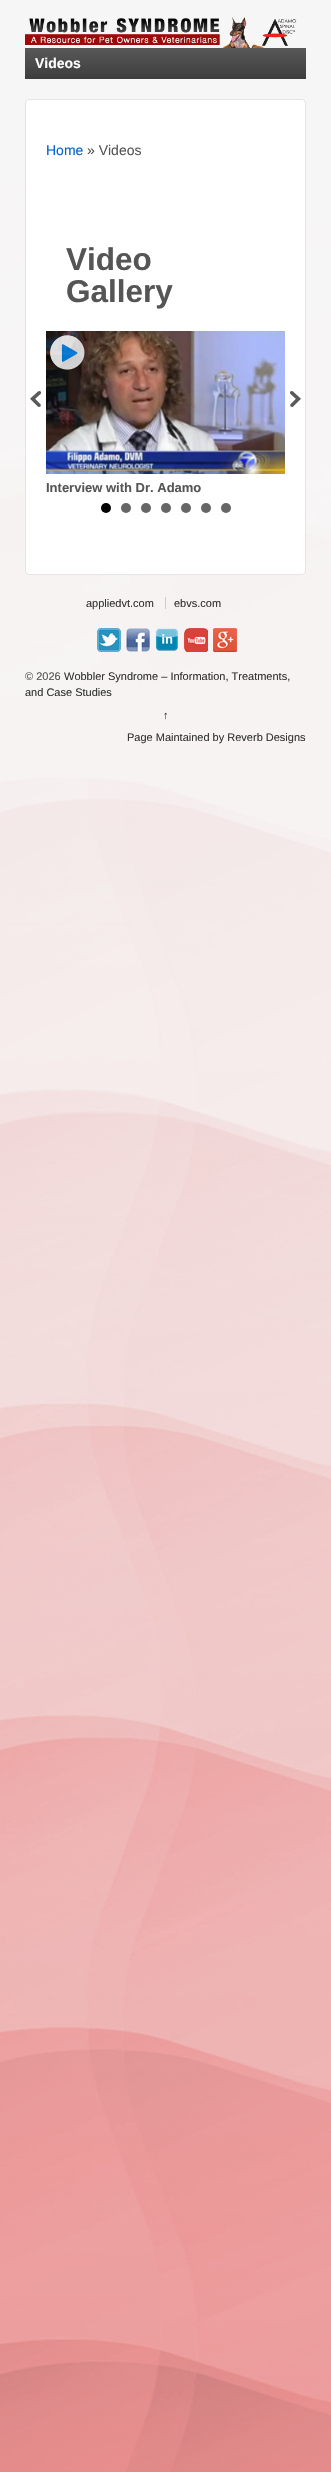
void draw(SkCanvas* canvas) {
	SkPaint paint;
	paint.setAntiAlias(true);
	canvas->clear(0xffffffff);
	canvas->drawImageRect(SkImages::DeferredFromEncodedData(SkData::MakeFromFileName("img1.png")), SkRect::MakeXYWH(0, 0, 331, 2472), SkSamplingOptions());
	canvas->drawImageRect(SkImages::DeferredFromEncodedData(SkData::MakeFromFileName("img2.png")), SkRect::MakeXYWH(25, 17, 272, 31), SkSamplingOptions());
	{
		const SkColor colors[] = {0xff585858, 0xff3d3d3d};
		const float stops[] = {0, 1};
		const SkPoint ends[] = {{166, 48}, {166, 79}};
		paint.setShader(SkGradientShader::MakeLinear(ends, colors, stops, 2, SkTileMode::kClamp));
		paint.setAlpha(255);
	}
	canvas->drawRect(SkRect::MakeXYWH(25, 48, 281, 31), paint);
	SkFont f1(fontMgr->matchFamilyStyle("Liberation Sans", SkFontStyle::Bold()), 14);
	f1.setSubpixel(true);
	paint.setShader(nullptr);
	paint.setColor(0xffffffff);
	canvas->drawString("Videos", 35, 68, f1, paint);
	canvas->drawRoundRect(SkRect::MakeXYWH(25.5, 99.5, 280, 475), 3.5, 3.5, paint);
	paint.setStroke(true);
	paint.setStrokeWidth(1);
	paint.setColor(0xffe5e5e5);
	canvas->drawRoundRect(SkRect::MakeXYWH(25.5, 99.5, 280, 475), 3.5, 3.5, paint);
	SkFont f2(fontMgr->matchFamilyStyle("Liberation Sans", SkFontStyle::Normal()), 14);
	f2.setSubpixel(true);
	paint.setStroke(false);
	paint.setColor(0xff0066cc);
	canvas->drawString("Home", 46, 155, f2, paint);
	paint.setColor(0xff555555);
	canvas->drawString("» Videos", 87, 155, f2, paint);
	SkFont f3(fontMgr->matchFamilyStyle("Liberation Sans", SkFontStyle::Bold()), 31.5);
	f3.setSubpixel(true);
	canvas->drawString("Video", 66, 270, f3, paint);
	canvas->drawString("Gallery", 66, 302, f3, paint);
	canvas->drawImageRect(SkImages::DeferredFromEncodedData(SkData::MakeFromFileName("img3.png")), SkRect::MakeXYWH(30, 391, 11, 16), SkSamplingOptions());
	canvas->drawImageRect(SkImages::DeferredFromEncodedData(SkData::MakeFromFileName("img4.png")), SkRect::MakeXYWH(290, 391, 11, 16), SkSamplingOptions());
	paint.setColor(0xff000000);
	canvas->drawCircle(106, 508, 5, paint);
	paint.setColor(0xff666666);
	canvas->drawCircle(126, 508, 5, paint);
	canvas->drawCircle(146, 508, 5, paint);
	canvas->drawCircle(166, 508, 5, paint);
	canvas->drawCircle(186, 508, 5, paint);
	canvas->drawCircle(206, 508, 5, paint);
	canvas->drawCircle(226, 508, 5, paint);
	canvas->drawImageRect(SkImages::DeferredFromEncodedData(SkData::MakeFromFileName("img5.png")), SkRect::MakeXYWH(46, 331, 239, 143), SkSamplingOptions());
	canvas->drawImageRect(SkImages::DeferredFromEncodedData(SkData::MakeFromFileName("img6.png")), SkRect::MakeXYWH(50, 335, 36, 35), SkSamplingOptions());
	SkFont f4(fontMgr->matchFamilyStyle("Liberation Sans", SkFontStyle::Bold()), 13);
	f4.setSubpixel(true);
	paint.setColor(0xff555555);
	canvas->drawString("Interview with Dr. Adamo", 46, 492, f4, paint);
	SkFont f5(fontMgr->matchFamilyStyle("Liberation Sans", SkFontStyle::Normal()), 11);
	f5.setSubpixel(true);
	paint.setColor(0xff333333);
	canvas->drawString("appliedvt.com", 86, 607, f5, paint);
	canvas->drawString("ebvs.com", 174, 607, f5, paint);
	paint.setColor(0xffcccccc);
	canvas->drawRect(SkRect::MakeXYWH(165, 597, 1, 12), paint);
	canvas->drawImageRect(SkImages::DeferredFromEncodedData(SkData::MakeFromFileName("img7.png")), SkRect::MakeXYWH(97, 628, 24, 24), SkSamplingOptions());
	canvas->drawImageRect(SkImages::DeferredFromEncodedData(SkData::MakeFromFileName("img8.png")), SkRect::MakeXYWH(126, 628, 24, 24), SkSamplingOptions());
	canvas->drawImageRect(SkImages::DeferredFromEncodedData(SkData::MakeFromFileName("img9.png")), SkRect::MakeXYWH(155, 628, 23, 23), SkSamplingOptions());
	canvas->drawImageRect(SkImages::DeferredFromEncodedData(SkData::MakeFromFileName("img10.png")), SkRect::MakeXYWH(184, 628, 24, 24), SkSamplingOptions());
	canvas->drawImageRect(SkImages::DeferredFromEncodedData(SkData::MakeFromFileName("img11.png")), SkRect::MakeXYWH(213, 628, 24, 24), SkSamplingOptions());
	paint.setColor(0xff555555);
	canvas->drawString("© 2026", 25, 680, f5, paint);
	paint.setColor(0xff333333);
	canvas->drawString("Wobbler Syndrome – Information, Treatments,", 64, 680, f5, paint);
	canvas->drawString("and Case Studies", 25, 696, f5, paint);
	canvas->drawString("↑", 163, 719, f5, paint);
	canvas->drawString("Page Maintained by Reverb Designs", 127, 741, f5, paint);
}
